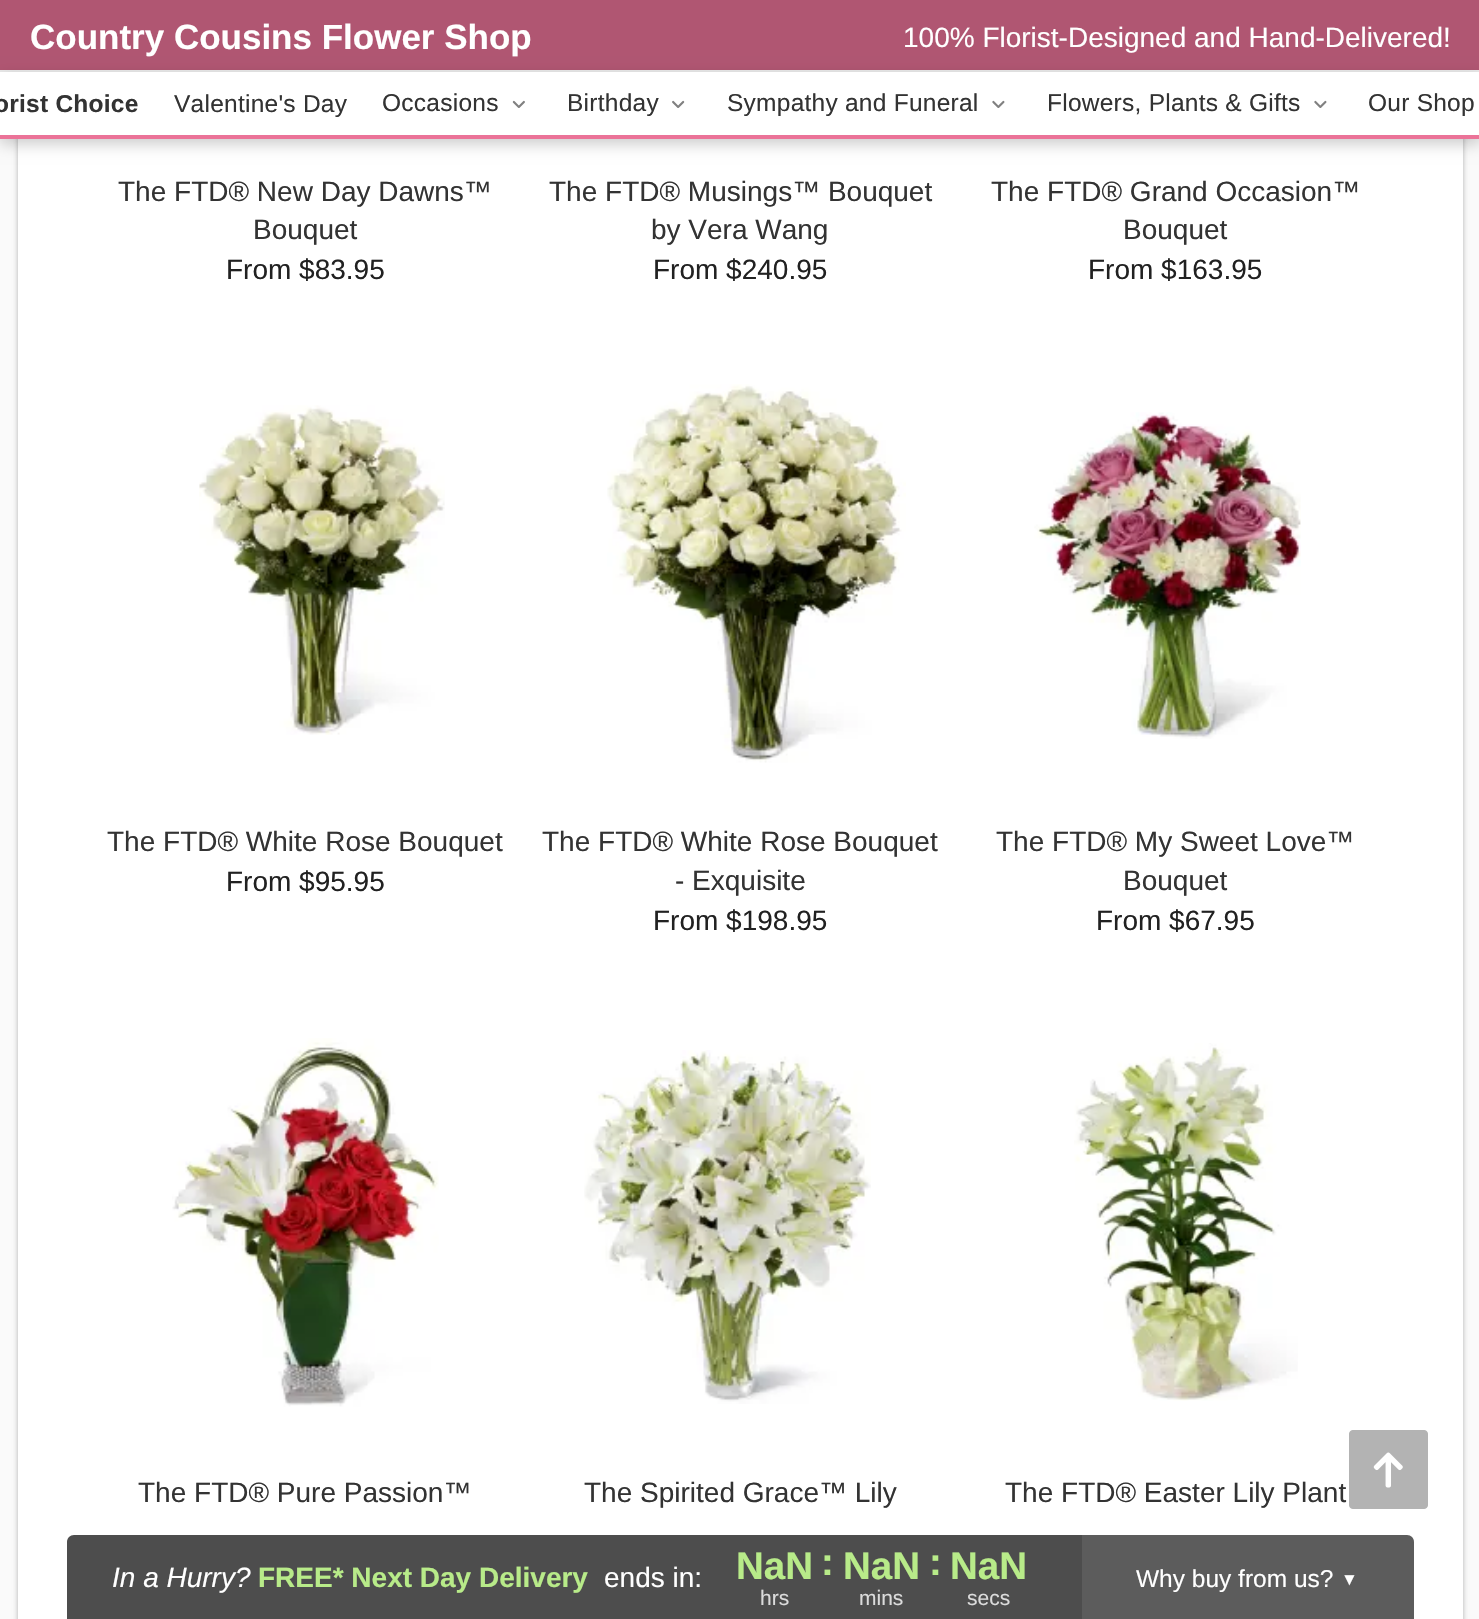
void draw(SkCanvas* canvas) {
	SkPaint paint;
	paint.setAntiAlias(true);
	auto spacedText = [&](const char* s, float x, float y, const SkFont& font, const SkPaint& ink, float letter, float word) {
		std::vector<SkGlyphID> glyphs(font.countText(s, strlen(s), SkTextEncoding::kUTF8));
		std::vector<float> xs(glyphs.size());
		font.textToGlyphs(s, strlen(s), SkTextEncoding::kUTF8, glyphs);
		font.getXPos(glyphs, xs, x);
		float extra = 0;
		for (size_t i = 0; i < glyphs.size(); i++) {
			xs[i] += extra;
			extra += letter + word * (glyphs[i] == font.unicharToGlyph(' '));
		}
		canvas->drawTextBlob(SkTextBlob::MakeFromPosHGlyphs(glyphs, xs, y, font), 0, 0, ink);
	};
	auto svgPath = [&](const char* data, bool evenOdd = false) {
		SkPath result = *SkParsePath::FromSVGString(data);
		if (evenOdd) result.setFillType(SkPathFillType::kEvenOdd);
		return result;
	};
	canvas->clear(0xfffafafa);
	paint.setColor(0x4d000000);
	paint.setMaskFilter(SkMaskFilter::MakeBlur(kNormal_SkBlurStyle, 2.5));
	canvas->drawRect(SkRect::MakeXYWH(18, -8, 1445, 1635), paint);
	paint.setMaskFilter(nullptr);
	paint.setColor(0xffb05672);
	canvas->drawRect(SkRect::MakeXYWH(0, 0, 1479, 70), paint);
	SkFont f1(fontMgr->matchFamilyStyle("Liberation Sans", SkFontStyle::Bold()), 35);
	f1.setSubpixel(true);
	paint.setColor(0xffffffff);
	canvas->drawString("Country Cousins Flower Shop", 30, 49, f1, paint);
	SkFont f2(fontMgr->matchFamilyStyle("Liberation Sans", SkFontStyle::Normal()), 28);
	f2.setSubpixel(true);
	canvas->drawString("100% Florist-Designed and Hand-Delivered!", 903, 47, f2, paint);
	paint.setColor(0xffeaeaea);
	canvas->drawRect(SkRect::MakeXYWH(0, 70, 1479, 2), paint);
	paint.setColor(0xffffffff);
	canvas->drawRect(SkRect::MakeXYWH(18, 139, 1445, 1480), paint);
	paint.setColor(0x33000000);
	paint.setMaskFilter(SkMaskFilter::MakeBlur(kNormal_SkBlurStyle, 7));
	canvas->drawRect(SkRect::MakeXYWH(0, 77, 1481, 67), paint);
	paint.setMaskFilter(nullptr);
	paint.setColor(0xffffffff);
	canvas->drawRect(SkRect::MakeXYWH(0, 72, 1479, 63), paint);
	paint.setColor(0xffeb7398);
	canvas->drawRect(SkRect::MakeXYWH(0, 135, 1479, 4), paint);
	SkFont f3(fontMgr->matchFamilyStyle("Liberation Sans", SkFontStyle::Bold()), 24.5);
	f3.setSubpixel(true);
	paint.setColor(0xff333333);
	spacedText("orist Choice", -6, 112, f3, paint, 0.25, 0);
	SkFont f4(fontMgr->matchFamilyStyle("Liberation Sans", SkFontStyle::Normal()), 24.5);
	f4.setSubpixel(true);
	spacedText("Valentine's Day", 174, 112, f4, paint, 0.25, 0);
	spacedText("Occasions", 382, 111, f4, paint, 0.25, 0);
	canvas->drawImageRect(SkImages::DeferredFromEncodedData(SkData::MakeFromFileName("img1.png")), SkRect::MakeXYWH(512, 100, 13, 8), SkSamplingOptions());
	spacedText("Birthday", 567, 111, f4, paint, 0.25, 0);
	canvas->drawImageRect(SkImages::DeferredFromEncodedData(SkData::MakeFromFileName("img2.png")), SkRect::MakeXYWH(672, 100, 13, 8), SkSamplingOptions());
	spacedText("Sympathy and Funeral", 727, 111, f4, paint, 0.25, 0);
	canvas->drawImageRect(SkImages::DeferredFromEncodedData(SkData::MakeFromFileName("img3.png")), SkRect::MakeXYWH(992, 100, 13, 8), SkSamplingOptions());
	spacedText("Flowers, Plants & Gifts", 1047, 111, f4, paint, 0.25, 0);
	canvas->drawImageRect(SkImages::DeferredFromEncodedData(SkData::MakeFromFileName("img3.png")), SkRect::MakeXYWH(1314, 100, 13, 8), SkSamplingOptions());
	spacedText("Our Shop", 1368, 111, f4, paint, 0.25, 0);
	canvas->drawString("The FTD® New Day Dawns™", 118, 201, f2, paint);
	canvas->drawString("Bouquet", 253, 239, f2, paint);
	paint.setColor(0xff212121);
	canvas->drawString("From $83.95", 226, 279, f2, paint);
	paint.setColor(0xff333333);
	canvas->drawString("The FTD® Musings™ Bouquet", 549, 201, f2, paint);
	canvas->drawString("by Vera Wang", 651, 239, f2, paint);
	paint.setColor(0xff212121);
	canvas->drawString("From $240.95", 653, 279, f2, paint);
	paint.setColor(0xff333333);
	canvas->drawString("The FTD® Grand Occasion™", 991, 201, f2, paint);
	canvas->drawString("Bouquet", 1123, 239, f2, paint);
	paint.setColor(0xff212121);
	canvas->drawString("From $163.95", 1088, 279, f2, paint);
	canvas->drawImageRect(SkImages::DeferredFromEncodedData(SkData::MakeFromFileName("img4.png")), SkRect::MakeXYWH(199, 405, 246, 330), SkSamplingOptions());
	paint.setColor(0xff333333);
	canvas->drawString("The FTD® White Rose Bouquet", 107, 851, f2, paint);
	paint.setColor(0xff212121);
	canvas->drawString("From $95.95", 226, 891, f2, paint);
	canvas->drawImageRect(SkImages::DeferredFromEncodedData(SkData::MakeFromFileName("img5.png")), SkRect::MakeXYWH(607, 384, 299, 379), SkSamplingOptions());
	paint.setColor(0xff333333);
	canvas->drawString("The FTD® White Rose Bouquet", 542, 851, f2, paint);
	canvas->drawString("- Exquisite", 675, 890, f2, paint);
	paint.setColor(0xff212121);
	canvas->drawString("From $198.95", 653, 930, f2, paint);
	canvas->drawImageRect(SkImages::DeferredFromEncodedData(SkData::MakeFromFileName("img6.png")), SkRect::MakeXYWH(1034, 412, 267, 327), SkSamplingOptions());
	paint.setColor(0xff333333);
	canvas->drawString("The FTD® My Sweet Love™", 996, 851, f2, paint);
	canvas->drawString("Bouquet", 1123, 890, f2, paint);
	paint.setColor(0xff212121);
	canvas->drawString("From $67.95", 1096, 930, f2, paint);
	canvas->drawImageRect(SkImages::DeferredFromEncodedData(SkData::MakeFromFileName("img7.png")), SkRect::MakeXYWH(172, 1038, 267, 369), SkSamplingOptions());
	paint.setColor(0xff333333);
	canvas->drawString("The FTD® Pure Passion™", 138, 1502, f2, paint);
	canvas->drawImageRect(SkImages::DeferredFromEncodedData(SkData::MakeFromFileName("img8.png")), SkRect::MakeXYWH(584, 1050, 287, 354), SkSamplingOptions());
	canvas->drawString("The Spirited Grace™ Lily", 584, 1502, f2, paint);
	canvas->drawImageRect(SkImages::DeferredFromEncodedData(SkData::MakeFromFileName("img9.png")), SkRect::MakeXYWH(1074, 1043, 224, 358), SkSamplingOptions());
	canvas->drawString("The FTD® Easter Lily Plant", 1005, 1502, f2, paint);
	canvas->drawImageRect(SkImages::DeferredFromEncodedData(SkData::MakeFromFileName("img10.png")), SkRect::MakeXYWH(1349, 1430, 79, 79), SkSamplingOptions());
	paint.setColor(0xff4d4d4d);
	canvas->drawPath(svgPath("M74 1535H1082V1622H67V1542C67 1538 70 1535 74 1535Z"), paint);
	SkFont f5(fontMgr->matchFamilyStyle("Liberation Sans", SkFontStyle::Italic()), 28);
	f5.setSubpixel(true);
	paint.setColor(0xffffffff);
	canvas->drawString("In a Hurry?", 112, 1587, f5, paint);
	SkFont f6(fontMgr->matchFamilyStyle("Liberation Sans", SkFontStyle::Bold()), 28);
	f6.setSubpixel(true);
	paint.setColor(0xffb8eb89);
	canvas->drawString("FREE* Next Day Delivery", 258, 1587, f6, paint);
	paint.setColor(0xffffffff);
	canvas->drawString("ends in:", 604, 1587, f2, paint);
	SkFont f7(fontMgr->matchFamilyStyle("Liberation Sans", SkFontStyle::Bold()), 38.5);
	f7.setSubpixel(true);
	paint.setColor(0xffb8eb89);
	canvas->drawString("NaN", 736, 1579, f7, paint);
	SkFont f8(fontMgr->matchFamilyStyle("Liberation Sans", SkFontStyle::Normal()), 21);
	f8.setSubpixel(true);
	paint.setColor(0xffdbdbdb);
	canvas->drawString("hrs", 760, 1605, f8, paint);
	paint.setColor(0xffb8eb89);
	canvas->drawString(":", 821, 1575, f7, paint);
	canvas->drawString("NaN", 843, 1579, f7, paint);
	paint.setColor(0xffdbdbdb);
	canvas->drawString("mins", 859, 1605, f8, paint);
	paint.setColor(0xffb8eb89);
	canvas->drawString(":", 929, 1575, f7, paint);
	canvas->drawString("NaN", 950, 1579, f7, paint);
	paint.setColor(0xffdbdbdb);
	canvas->drawString("secs", 967, 1605, f8, paint);
	paint.setColor(0xff5c5c5c);
	canvas->drawPath(svgPath("M1082 1535H1407C1411 1535 1414 1538 1414 1542V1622H1082Z"), paint);
	paint.setColor(0xffffffff);
	canvas->drawString("Why buy from us?", 1136, 1587, f4, paint);
	SkFont f9(fontMgr->matchFamilyStyle("Liberation Sans", SkFontStyle::Normal()), 17);
	f9.setSubpixel(true);
	canvas->drawString("▼", 1341, 1585, f9, paint);
}
